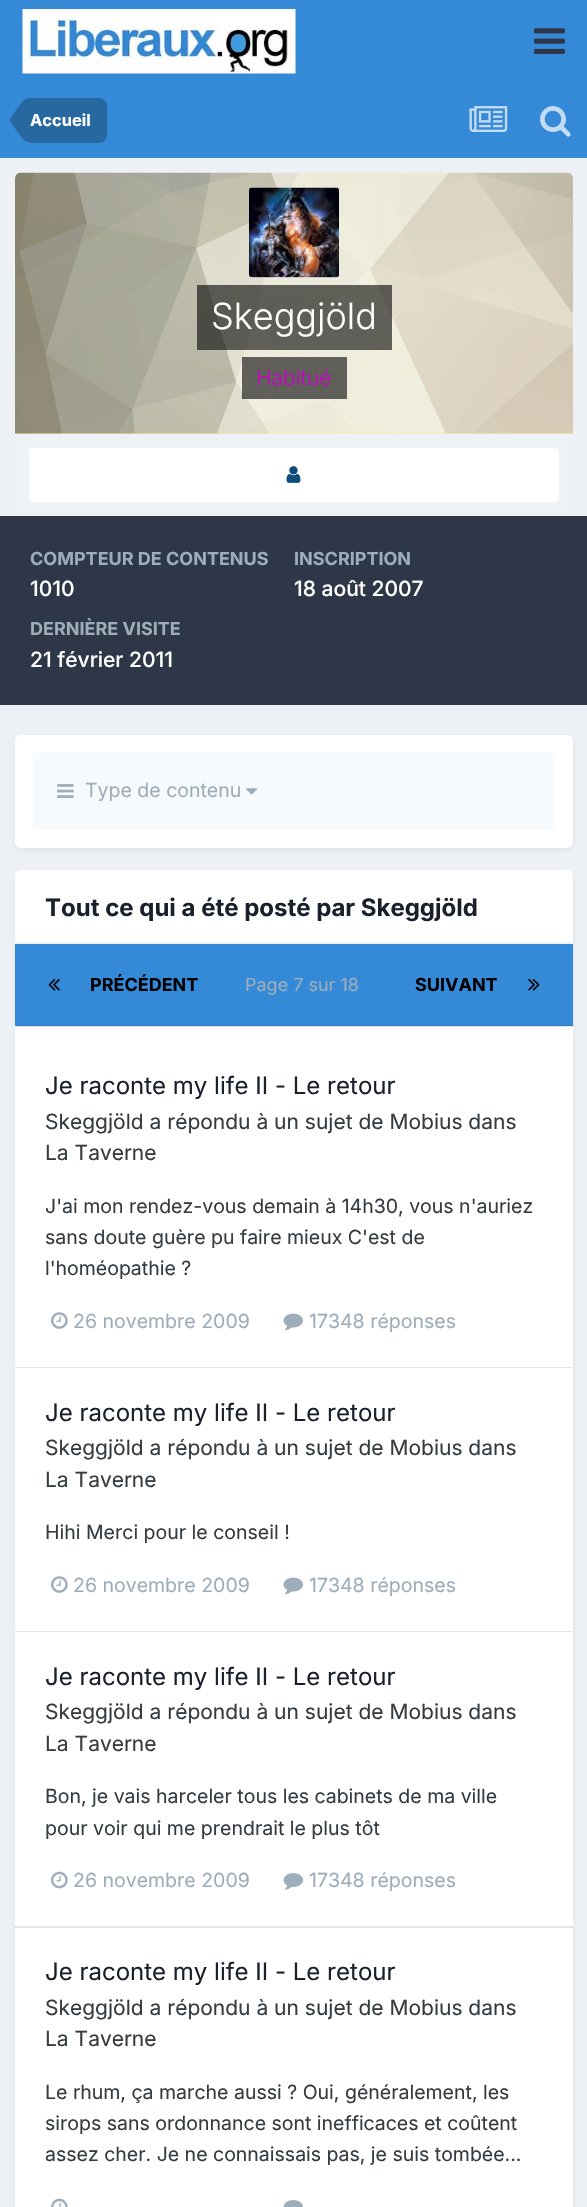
void draw(SkCanvas* canvas) {
	SkPaint paint;
	paint.setAntiAlias(true);
	auto svgPath = [&](const char* data, bool evenOdd = false) {
		SkPath result = *SkParsePath::FromSVGString(data);
		if (evenOdd) result.setFillType(SkPathFillType::kEvenOdd);
		return result;
	};
	canvas->clear(0xffedf0f4);
	paint.setColor(0xff348ad7);
	canvas->drawRect(SkRect::MakeXYWH(0, 0, 587, 158), paint);
	canvas->drawImageRect(SkImages::DeferredFromEncodedData(SkData::MakeFromFileName("img1.png")), SkRect::MakeXYWH(22, 9, 274, 65), SkSamplingOptions());
	canvas->drawImageRect(SkImages::DeferredFromEncodedData(SkData::MakeFromFileName("img2.png")), SkRect::MakeXYWH(534, 28, 31, 26), SkSamplingOptions());
	paint.setColor(0xff2768a1);
	canvas->drawPath(svgPath("M30 98H99C103.5 98 107 101.5 107 106V135C107 139.5 103.5 143 99 143H30Z"), paint);
	canvas->drawPath(svgPath("M30 120V142C27 142 24.5 141 22 138L10.5 122L10 120ZM30 120H10L10.5 118L22 102C24.5 99 27 98 30 98Z"), paint);
	SkFont f1(fontMgr->matchFamilyStyle("Inter", SkFontStyle::Bold()), 16.5);
	f1.setSubpixel(true);
	paint.setColor(0xffffffff);
	canvas->drawString("Accueil", 30, 126, f1, paint);
	canvas->drawImageRect(SkImages::DeferredFromEncodedData(SkData::MakeFromFileName("img3.png")), SkRect::MakeXYWH(469, 106, 39, 26), SkSamplingOptions());
	canvas->drawImageRect(SkImages::DeferredFromEncodedData(SkData::MakeFromFileName("img4.png")), SkRect::MakeXYWH(540, 106, 31, 31), SkSamplingOptions());
	paint.setColor(0xffffeb99);
	canvas->drawPath(svgPath("M21 173H567C570.5 173 573 175.5 573 179V434H15V179C15 175.5 17.5 173 21 173Z"), paint);
	canvas->drawImageRect(SkImages::DeferredFromEncodedData(SkData::MakeFromFileName("img5.png")), SkRect::MakeXYWH(15, 172, 558, 262), SkSamplingOptions());
	paint.setColor(0xffffffff);
	canvas->drawRoundRect(SkRect::MakeXYWH(249, 188, 90, 90), 3, 3, paint);
	canvas->drawImageRect(SkImages::DeferredFromEncodedData(SkData::MakeFromFileName("img6.png")), SkRect::MakeXYWH(249, 187, 90, 91), SkSamplingOptions());
	paint.setColor(0x99000000);
	canvas->drawRect(SkRect::MakeXYWH(197, 285, 195, 65), paint);
	SkFont f2(fontMgr->matchFamilyStyle("Inter", SkFontStyle(300, SkFontStyle::kNormal_Width, SkFontStyle::kUpright_Slant)), 36);
	f2.setSubpixel(true);
	paint.setColor(0xffffffff);
	canvas->drawString("Skeggjöld", 211, 329, f2, paint);
	paint.setColor(0x99000000);
	canvas->drawRect(SkRect::MakeXYWH(242, 357, 105, 42), paint);
	SkFont f3(fontMgr->matchFamilyStyle("Inter", SkFontStyle(300, SkFontStyle::kNormal_Width, SkFontStyle::kUpright_Slant)), 21);
	f3.setSubpixel(true);
	paint.setColor(0xffcc00cc);
	canvas->drawString("Habitué", 256, 385, f3, paint);
	paint.setColor(0xffedf2f7);
	canvas->drawRect(SkRect::MakeXYWH(15, 434, 558, 82), paint);
	paint.setColor(0xffffffff);
	canvas->drawRoundRect(SkRect::MakeXYWH(27, 446, 534, 58), 6, 6, paint);
	paint.setStroke(true);
	paint.setStrokeWidth(2);
	paint.setColor(0x120e4c79);
	canvas->drawRoundRect(SkRect::MakeXYWH(28, 447, 532, 56), 5, 5, paint);
	canvas->drawImageRect(SkImages::DeferredFromEncodedData(SkData::MakeFromFileName("img7.png")), SkRect::MakeXYWH(286, 466, 15, 17), SkSamplingOptions());
	paint.setStroke(false);
	paint.setColor(0xff2d3748);
	canvas->drawRect(SkRect::MakeXYWH(0, 516, 587, 189), paint);
	SkFont f4(fontMgr->matchFamilyStyle("Inter", SkFontStyle::Bold()), 18);
	f4.setSubpixel(true);
	paint.setColor(0xff9eadba);
	canvas->drawString("COMPTEUR DE CONTENUS", 30, 565, f4, paint);
	SkFont f5(fontMgr->matchFamilyStyle("Inter", SkFontStyle(500, SkFontStyle::kNormal_Width, SkFontStyle::kUpright_Slant)), 21);
	f5.setSubpixel(true);
	paint.setColor(0xffffffff);
	canvas->drawString("1 010", 30, 596, f5, paint);
	paint.setColor(0xff9eadba);
	canvas->drawString("INSCRIPTION", 294, 565, f4, paint);
	paint.setColor(0xffffffff);
	canvas->drawString("18 août 2007", 294, 596, f5, paint);
	paint.setColor(0xff9eadba);
	canvas->drawString("DERNIÈRE VISITE", 30, 635, f4, paint);
	paint.setColor(0xffffffff);
	canvas->drawString("21 février 2011", 30, 667, f5, paint);
	paint.setColor(0x1a2d3748);
	paint.setMaskFilter(SkMaskFilter::MakeBlur(kNormal_SkBlurStyle, 3));
	canvas->drawRoundRect(SkRect::MakeXYWH(17, 740, 555, 109), 5, 5, paint);
	paint.setMaskFilter(nullptr);
	paint.setColor(0xffffffff);
	canvas->drawRoundRect(SkRect::MakeXYWH(15, 735, 558, 113), 6, 6, paint);
	paint.setColor(0xfff7fafc);
	canvas->drawRect(SkRect::MakeXYWH(33, 753, 522, 77), paint);
	canvas->drawImageRect(SkImages::DeferredFromEncodedData(SkData::MakeFromFileName("img8.png")), SkRect::MakeXYWH(57, 784, 17, 14), SkSamplingOptions());
	SkFont f6(fontMgr->matchFamilyStyle("Inter", SkFontStyle::Normal()), 19.5);
	f6.setSubpixel(true);
	paint.setColor(0xff9eadba);
	canvas->drawString("Type de contenu", 85, 797, f6, paint);
	canvas->drawImageRect(SkImages::DeferredFromEncodedData(SkData::MakeFromFileName("img9.png")), SkRect::MakeXYWH(246, 788, 11, 7), SkSamplingOptions());
	paint.setColor(0x1a2d3748);
	paint.setMaskFilter(SkMaskFilter::MakeBlur(kNormal_SkBlurStyle, 3));
	canvas->drawRoundRect(SkRect::MakeXYWH(17, 875, 555, 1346), 5, 5, paint);
	paint.setMaskFilter(nullptr);
	paint.setColor(0xffffffff);
	canvas->drawRoundRect(SkRect::MakeXYWH(15, 870, 558, 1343), 6, 6, paint);
	paint.setColor(0xffe1e2e3);
	canvas->drawRect(SkRect::MakeXYWH(15, 1026, 558, 1), paint);
	paint.setColor(0xffffffff);
	canvas->drawPath(svgPath("M21 870H567C570.5 870 573 872.5 573 876V944H15V876C15 872.5 17.5 870 21 870Z"), paint);
	paint.setColor(0xfff0f3f5);
	canvas->drawRect(SkRect::MakeXYWH(15, 942, 558, 2), paint);
	SkFont f7(fontMgr->matchFamilyStyle("Inter", SkFontStyle::Bold()), 24);
	f7.setSubpixel(true);
	paint.setColor(0xff1a202c);
	canvas->drawString("Tout ce qui a été posté par Skeggjöld", 45, 916, f7, paint);
	paint.setColor(0xff348ad7);
	canvas->drawRect(SkRect::MakeXYWH(15, 944, 558, 81), paint);
	paint.setColor(0xff347ec1);
	canvas->drawRect(SkRect::MakeXYWH(15, 1025, 558, 1), paint);
	canvas->drawImageRect(SkImages::DeferredFromEncodedData(SkData::MakeFromFileName("img10.png")), SkRect::MakeXYWH(48, 979, 12, 12), SkSamplingOptions());
	paint.setColor(0xff000000);
	canvas->drawString("PRÉCÉDENT", 90, 991, f4, paint);
	SkFont f8(fontMgr->matchFamilyStyle("Inter", SkFontStyle::Normal()), 18);
	f8.setSubpixel(true);
	paint.setColor(0xff9eadba);
	canvas->drawString("Page 7 sur 18", 245, 991, f8, paint);
	paint.setColor(0xff000000);
	canvas->drawString("SUIVANT", 415, 991, f4, paint);
	canvas->drawImageRect(SkImages::DeferredFromEncodedData(SkData::MakeFromFileName("img11.png")), SkRect::MakeXYWH(528, 979, 12, 12), SkSamplingOptions());
	paint.setColor(0xffe6e6e6);
	canvas->drawRect(SkRect::MakeXYWH(15, 1367, 558, 1), paint);
	SkFont f9(fontMgr->matchFamilyStyle("Inter", SkFontStyle::Normal()), 24);
	f9.setSubpixel(true);
	paint.setColor(0xff1a202c);
	canvas->drawString("Je raconte my life II - Le retour", 45, 1094, f9, paint);
	SkFont f10(fontMgr->matchFamilyStyle("Inter", SkFontStyle::Normal()), 21);
	f10.setSubpixel(true);
	paint.setColor(0xff353c41);
	canvas->drawString("Skeggjöld a répondu à un sujet de Mobius dans", 45, 1129, f10, paint);
	canvas->drawString("La Taverne", 45, 1160, f10, paint);
	canvas->drawString("J'ai mon rendez-vous demain à 14h30, vous n'auriez", 45, 1213, f6, paint);
	canvas->drawString("sans doute guère pu faire mieux C'est de", 45, 1244, f6, paint);
	canvas->drawString("l'homéopathie ?", 45, 1275, f6, paint);
	canvas->drawImageRect(SkImages::DeferredFromEncodedData(SkData::MakeFromFileName("img12.png")), SkRect::MakeXYWH(51, 1312, 17, 17), SkSamplingOptions());
	paint.setColor(0xff9eadba);
	canvas->drawString("26 novembre 2009", 73, 1328, f6, paint);
	canvas->drawImageRect(SkImages::DeferredFromEncodedData(SkData::MakeFromFileName("img13.png")), SkRect::MakeXYWH(283, 1313, 20, 18), SkSamplingOptions());
	canvas->drawString("17 348 réponses", 309, 1328, f6, paint);
	paint.setColor(0xffe6e6e6);
	canvas->drawRect(SkRect::MakeXYWH(15, 1631, 558, 1), paint);
	paint.setColor(0xff1a202c);
	canvas->drawString("Je raconte my life II - Le retour", 45, 1421, f9, paint);
	paint.setColor(0xff353c41);
	canvas->drawString("Skeggjöld a répondu à un sujet de Mobius dans", 45, 1455, f10, paint);
	canvas->drawString("La Taverne", 45, 1487, f10, paint);
	canvas->drawString("Hihi Merci pour le conseil !", 45, 1539, f6, paint);
	canvas->drawImageRect(SkImages::DeferredFromEncodedData(SkData::MakeFromFileName("img12.png")), SkRect::MakeXYWH(51, 1576, 17, 17), SkSamplingOptions());
	paint.setColor(0xff9eadba);
	canvas->drawString("26 novembre 2009", 73, 1592, f6, paint);
	canvas->drawImageRect(SkImages::DeferredFromEncodedData(SkData::MakeFromFileName("img13.png")), SkRect::MakeXYWH(283, 1577, 20, 18), SkSamplingOptions());
	canvas->drawString("17 348 réponses", 309, 1592, f6, paint);
	paint.setColor(0xffe6e6e6);
	canvas->drawRect(SkRect::MakeXYWH(15, 1926, 558, 2), paint);
	paint.setColor(0xff1a202c);
	canvas->drawString("Je raconte my life II - Le retour", 45, 1685, f9, paint);
	paint.setColor(0xff353c41);
	canvas->drawString("Skeggjöld a répondu à un sujet de Mobius dans", 45, 1719, f10, paint);
	canvas->drawString("La Taverne", 45, 1751, f10, paint);
	canvas->drawString("Bon, je vais harceler tous les cabinets de ma ville", 45, 1803, f6, paint);
	canvas->drawString("pour voir qui me prendrait le plus tôt", 45, 1835, f6, paint);
	canvas->drawImageRect(SkImages::DeferredFromEncodedData(SkData::MakeFromFileName("img14.png")), SkRect::MakeXYWH(51, 1871, 17, 18), SkSamplingOptions());
	paint.setColor(0xff9eadba);
	canvas->drawString("26 novembre 2009", 73, 1887, f6, paint);
	canvas->drawImageRect(SkImages::DeferredFromEncodedData(SkData::MakeFromFileName("img15.png")), SkRect::MakeXYWH(283, 1873, 20, 17), SkSamplingOptions());
	canvas->drawString("17 348 réponses", 309, 1887, f6, paint);
	paint.setColor(0xff1a202c);
	canvas->drawString("Je raconte my life II - Le retour", 45, 1980, f9, paint);
	paint.setColor(0xff353c41);
	canvas->drawString("Skeggjöld a répondu à un sujet de Mobius dans", 45, 2015, f10, paint);
	canvas->drawString("La Taverne", 45, 2046, f10, paint);
	canvas->drawString("Le rhum, ça marche aussi ? Oui, généralement, les", 45, 2099, f6, paint);
	canvas->drawString("sirops sans ordonnance sont inefficaces et coûtent", 45, 2130, f6, paint);
	canvas->drawString("assez cher. Je ne connaissais pas, je suis tombée...", 45, 2161, f6, paint);
	canvas->drawImageRect(SkImages::DeferredFromEncodedData(SkData::MakeFromFileName("img16.png")), SkRect::MakeXYWH(51, 2198, 17, 9), SkSamplingOptions());
	canvas->drawImageRect(SkImages::DeferredFromEncodedData(SkData::MakeFromFileName("img17.png")), SkRect::MakeXYWH(283, 2200, 20, 7), SkSamplingOptions());
}
